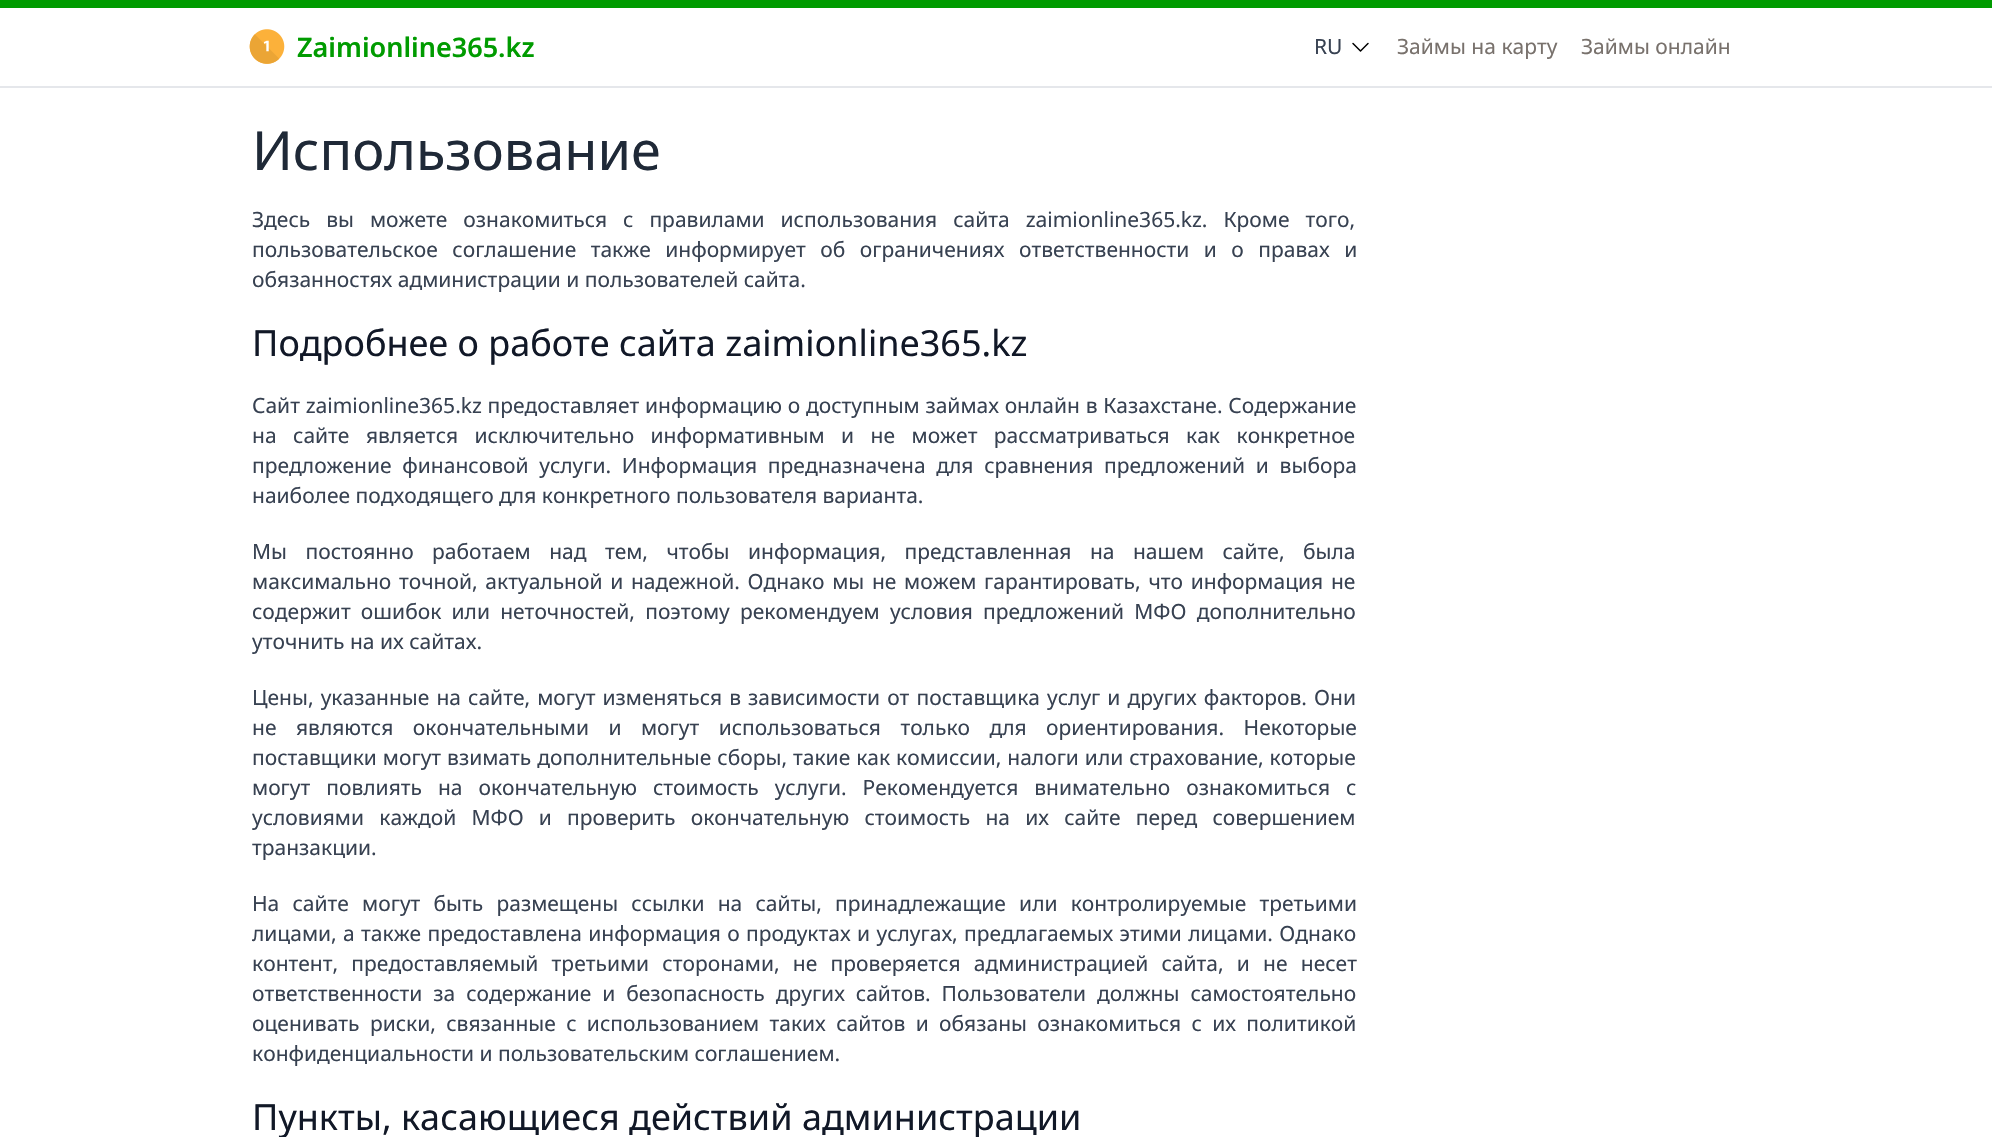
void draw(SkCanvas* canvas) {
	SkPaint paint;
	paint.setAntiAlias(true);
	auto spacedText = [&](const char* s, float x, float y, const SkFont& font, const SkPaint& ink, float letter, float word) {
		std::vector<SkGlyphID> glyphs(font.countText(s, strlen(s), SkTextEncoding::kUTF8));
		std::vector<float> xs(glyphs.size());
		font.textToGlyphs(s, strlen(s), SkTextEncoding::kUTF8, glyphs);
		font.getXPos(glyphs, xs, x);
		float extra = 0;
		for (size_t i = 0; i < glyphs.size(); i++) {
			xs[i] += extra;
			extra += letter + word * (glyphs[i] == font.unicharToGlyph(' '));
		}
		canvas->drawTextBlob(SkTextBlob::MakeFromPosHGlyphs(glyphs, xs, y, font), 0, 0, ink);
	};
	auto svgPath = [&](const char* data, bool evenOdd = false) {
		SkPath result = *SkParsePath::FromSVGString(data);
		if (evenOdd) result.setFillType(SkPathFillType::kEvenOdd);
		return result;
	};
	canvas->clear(0xffffffff);
	paint.setColor(0xffe5e7eb);
	canvas->drawRect(SkRect::MakeXYWH(0, 86, 1992, 2), paint);
	paint.setColor(0xff009b00);
	canvas->drawRect(SkRect::MakeXYWH(0, 0, 1992, 8), paint);
	canvas->drawImageRect(SkImages::DeferredFromEncodedData(SkData::MakeFromFileName("img1.png")), SkRect::MakeXYWH(249, 29, 36, 35), SkSamplingOptions());
	SkFont f1(fontMgr->matchFamilyStyle("Noto Sans", SkFontStyle(600, SkFontStyle::kNormal_Width, SkFontStyle::kUpright_Slant)), 27);
	f1.setSubpixel(true);
	canvas->drawString("Zaimionline365.kz", 297, 57, f1, paint);
	SkFont f2(fontMgr->matchFamilyStyle("Noto Sans", SkFontStyle::Normal()), 21);
	f2.setSubpixel(true);
	paint.setColor(0xff374151);
	canvas->drawString("RU", 1314, 54, f2, paint);
	paint.setStroke(true);
	paint.setStrokeWidth(1.5);
	paint.setStrokeCap(SkPaint::kRound_Cap);
	paint.setStrokeJoin(SkPaint::kRound_Join);
	paint.setColor(0xff000000);
	canvas->drawPath(svgPath("M1368 43.5L1360.5 51L1353 43.5"), paint);
	paint.setStroke(false);
	paint.setColor(0xff78716c);
	canvas->drawString("Займы на карту", 1397, 54, f2, paint);
	canvas->drawString("Займы онлайн", 1581, 54, f2, paint);
	SkFont f3(fontMgr->matchFamilyStyle("Noto Sans", SkFontStyle::Normal()), 54);
	f3.setSubpixel(true);
	paint.setColor(0xff1f2937);
	canvas->drawString("Использование", 252, 170, f3, paint);
	paint.setColor(0xff374151);
	spacedText("Здесь вы можете ознакомиться с правилами использования сайта zaimionline365.kz. Кроме того,", 252, 227, f2, paint, 0, 10.5);
	spacedText("пользовательское соглашение также информирует об ограничениях ответственности и о правах и", 252, 257, f2, paint, 0, 9);
	canvas->drawString("обязанностях администрации и пользователей сайта.", 252, 287, f2, paint);
	SkFont f4(fontMgr->matchFamilyStyle("Noto Sans", SkFontStyle::Normal()), 36);
	f4.setSubpixel(true);
	paint.setColor(0xff111827);
	canvas->drawString("Подробнее о работе сайта zaimionline365.kz", 252, 356, f4, paint);
	paint.setColor(0xff374151);
	spacedText("Сайт zaimionline365.kz предоставляет информацию о доступным займах онлайн в Казахстане. Содержание", 252, 413, f2, paint, 0, 0.25);
	spacedText("на сайте является исключительно информативным и не может рассматриваться как конкретное", 252, 443, f2, paint, 0, 11);
	spacedText("предложение финансовой услуги. Информация предназначена для сравнения предложений и выбора", 252, 473, f2, paint, 0, 5.25);
	canvas->drawString("наиболее подходящего для конкретного пользователя варианта.", 252, 503, f2, paint);
	spacedText("Мы постоянно работаем над тем, чтобы информация, представленная на нашем сайте, была", 252, 559, f2, paint, 0, 13);
	spacedText("максимально точной, актуальной и надежной. Однако мы не можем гарантировать, что информация не", 252, 589, f2, paint, 0, 2.25);
	spacedText("содержит ошибок или неточностей, поэтому рекомендуем условия предложений МФО дополнительно", 252, 619, f2, paint, 0, 4.75);
	canvas->drawString("уточнить на их сайтах.", 252, 649, f2, paint);
	spacedText("Цены, указанные на сайте, могут изменяться в зависимости от поставщика услуг и других факторов. Они", 252, 705, f2, paint, 0, 1.6);
	spacedText("не являются окончательными и могут использоваться только для ориентирования. Некоторые", 252, 735, f2, paint, 0, 14);
	spacedText("поставщики могут взимать дополнительные сборы, такие как комиссии, налоги или страхование, которые", 252, 765, f2, paint, 0, 0.5);
	spacedText("могут повлиять на окончательную стоимость услуги. Рекомендуется внимательно ознакомиться с", 252, 795, f2, paint, 0, 10.5);
	spacedText("условиями каждой МФО и проверить окончательную стоимость на их сайте перед совершением", 252, 825, f2, paint, 0, 9.75);
	canvas->drawString("транзакции.", 252, 855, f2, paint);
	spacedText("На сайте могут быть размещены ссылки на сайты, принадлежащие или контролируемые третьими", 252, 911, f2, paint, 0, 7.75);
	spacedText("лицами, а также предоставлена информация о продуктах и услугах, предлагаемых этими лицами. Однако", 252, 941, f2, paint, 0, 0.9);
	spacedText("контент, предоставляемый третьими сторонами, не проверяется администрацией сайта, и не несет", 252, 971, f2, paint, 0, 7.75);
	spacedText("ответственности за содержание и безопасность других сайтов. Пользователи должны самостоятельно", 252, 1001, f2, paint, 0, 5.5);
	spacedText("оценивать риски, связанные с использованием таких сайтов и обязаны ознакомиться с их политикой", 252, 1031, f2, paint, 0, 4.9);
	canvas->drawString("конфиденциальности и пользовательским соглашением.", 252, 1061, f2, paint);
	paint.setColor(0xff111827);
	canvas->drawString("Пункты, касающиеся действий администрации", 252, 1130, f4, paint);
}
